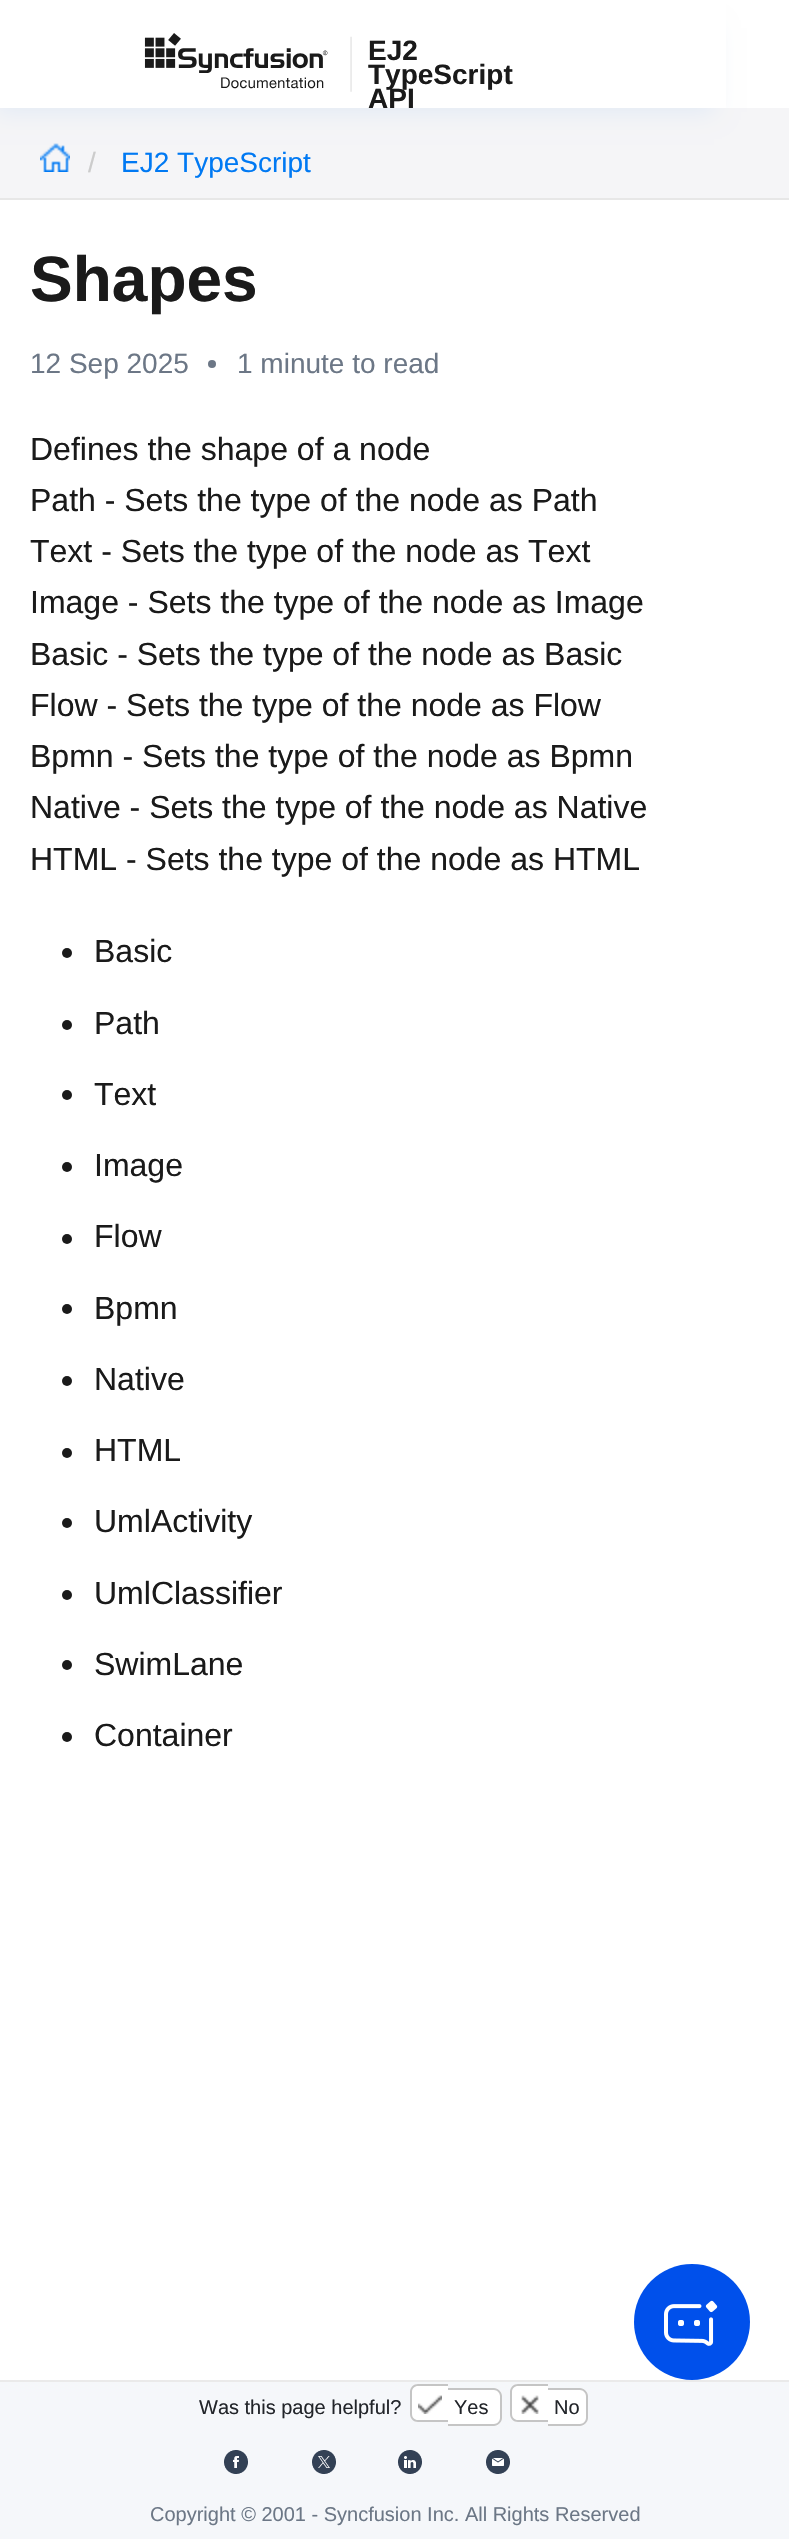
void draw(SkCanvas* canvas) {
	SkPaint paint;
	paint.setAntiAlias(true);
	auto svgPath = [&](const char* data, bool evenOdd = false) {
		SkPath result = *SkParsePath::FromSVGString(data);
		if (evenOdd) result.setFillType(SkPathFillType::kEvenOdd);
		return result;
	};
	canvas->clear(0xffffffff);
	paint.setColor(0xfff5f5f7);
	canvas->drawRect(SkRect::MakeXYWH(0, 108, 789, 90), paint);
	canvas->drawImageRect(SkImages::DeferredFromEncodedData(SkData::MakeFromFileName("img2.png")), SkRect::MakeXYWH(40, 143, 30, 29), SkSamplingOptions());
	canvas->save();
	canvas->clipPath(svgPath("M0 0H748V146H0ZM-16 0H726V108H-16Z", true), true);
	paint.setColor(0xffe2eaf5);
	paint.setMaskFilter(SkMaskFilter::MakeBlur(kNormal_SkBlurStyle, 11));
	canvas->drawRect(SkRect::MakeXYWH(-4, 28, 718, 84), paint);
	paint.setMaskFilter(nullptr);
	canvas->restore();
	canvas->drawImageRect(SkImages::DeferredFromEncodedData(SkData::MakeFromFileName("img1.png")), SkRect::MakeXYWH(144, 33, 208, 59), SkSamplingOptions());
	SkFont f1(fontMgr->matchFamilyStyle("Liberation Sans", SkFontStyle::Bold()), 28);
	f1.setSubpixel(true);
	paint.setColor(0xff1a1a1a);
	canvas->drawString("EJ2", 368, 60, f1, paint);
	canvas->drawString("TypeScript", 368, 84, f1, paint);
	canvas->drawString("API", 368, 108, f1, paint);
	paint.setColor(0xffe7e7e7);
	canvas->drawRect(SkRect::MakeXYWH(0, 198, 789, 2), paint);
	SkFont f2(fontMgr->matchFamilyStyle("Liberation Sans", SkFontStyle::Normal()), 28);
	f2.setSubpixel(true);
	paint.setColor(0xffcccccc);
	canvas->drawString("/", 88, 172, f2, paint);
	paint.setColor(0xff0079f3);
	canvas->drawString("EJ2 TypeScript", 121, 172, f2, paint);
	SkFont f3(fontMgr->matchFamilyStyle("Liberation Sans", SkFontStyle::Bold()), 64);
	f3.setSubpixel(true);
	paint.setColor(0xff1a1a1a);
	canvas->drawString("Shapes", 30, 301, f3, paint);
	paint.setColor(0xff6c7786);
	canvas->drawString("12 Sep 2025", 30, 373, f2, paint);
	canvas->drawCircle(212, 364, 4, paint);
	canvas->drawString("1 minute to read", 237, 373, f2, paint);
	SkFont f4(fontMgr->matchFamilyStyle("Liberation Sans", SkFontStyle::Normal()), 32);
	f4.setSubpixel(true);
	paint.setColor(0xff1a1a1a);
	canvas->drawString("Defines the shape of a node", 30, 460, f4, paint);
	canvas->drawString("Path - Sets the type of the node as Path", 30, 511, f4, paint);
	canvas->drawString("Text - Sets the type of the node as Text", 30, 562, f4, paint);
	canvas->drawString("Image - Sets the type of the node as Image", 30, 613, f4, paint);
	canvas->drawString("Basic - Sets the type of the node as Basic", 30, 665, f4, paint);
	canvas->drawString("Flow - Sets the type of the node as Flow", 30, 716, f4, paint);
	canvas->drawString("Bpmn - Sets the type of the node as Bpmn", 30, 767, f4, paint);
	canvas->drawString("Native - Sets the type of the node as Native", 30, 818, f4, paint);
	canvas->drawString("HTML - Sets the type of the node as HTML", 30, 870, f4, paint);
	canvas->drawCircle(67, 953, 5, paint);
	canvas->drawString("Basic", 94, 962, f4, paint);
	canvas->drawCircle(67, 1025, 5, paint);
	canvas->drawString("Path", 94, 1034, f4, paint);
	canvas->drawCircle(67, 1095, 5, paint);
	canvas->drawString("Text", 94, 1105, f4, paint);
	canvas->drawCircle(67, 1167, 5, paint);
	canvas->drawString("Image", 94, 1176, f4, paint);
	canvas->drawCircle(67, 1239, 5, paint);
	canvas->drawString("Flow", 94, 1247, f4, paint);
	canvas->drawCircle(67, 1309, 5, paint);
	canvas->drawString("Bpmn", 94, 1319, f4, paint);
	canvas->drawCircle(67, 1381, 5, paint);
	canvas->drawString("Native", 94, 1390, f4, paint);
	canvas->drawCircle(67, 1453, 5, paint);
	canvas->drawString("HTML", 94, 1461, f4, paint);
	canvas->drawCircle(67, 1523, 5, paint);
	canvas->drawString("UmlActivity", 94, 1532, f4, paint);
	canvas->drawCircle(67, 1595, 5, paint);
	canvas->drawString("UmlClassifier", 94, 1604, f4, paint);
	canvas->drawCircle(67, 1665, 5, paint);
	canvas->drawString("SwimLane", 94, 1675, f4, paint);
	canvas->drawCircle(67, 1737, 5, paint);
	canvas->drawString("Container", 94, 1746, f4, paint);
	paint.setColor(0xff0050eb);
	canvas->drawCircle(692, 2322, 58, paint);
	canvas->drawImageRect(SkImages::DeferredFromEncodedData(SkData::MakeFromFileName("img3.png")), SkRect::MakeXYWH(664, 2300, 54, 46), SkSamplingOptions());
	paint.setColor(0xfff5f7fa);
	canvas->drawRect(SkRect::MakeXYWH(0, 2382, 789, 157), paint);
	paint.setColor(0xffeaeaea);
	canvas->drawRect(SkRect::MakeXYWH(0, 2380, 789, 2), paint);
	SkFont f5(fontMgr->matchFamilyStyle("Liberation Sans", SkFontStyle::Normal()), 20);
	f5.setSubpixel(true);
	paint.setColor(0xff22252a);
	canvas->drawString("Was this page helpful?", 199, 2414, f5, paint);
	paint.setColor(0xffffffff);
	canvas->drawPath(svgPath("M418 2384H448V2422H418C413.5 2422 410 2418.5 410 2414V2392C410 2387.5 413.5 2384 418 2384Z"), paint);
	paint.setColor(0xffc5c5c5);
	canvas->drawPath(svgPath("M418 2384H448V2422H418C413.5 2422 410 2418.5 410 2414V2392C410 2387.5 413.5 2384 418 2384ZM418 2386H448V2420H418C414.5 2420 412 2417.5 412 2414V2392C412 2388.5 414.5 2386 418 2386Z", true), paint);
	paint.setColor(0xffffffff);
	canvas->drawPath(svgPath("M448 2388H494C498.5 2388 502 2391.5 502 2396V2418C502 2422.5 498.5 2426 494 2426H448Z"), paint);
	paint.setColor(0xffc5c5c5);
	canvas->drawPath(svgPath("M448 2388H494C498 2388 502 2392 502 2396V2418C502 2422 498 2426 494 2426H448ZM448 2390H494C497 2390 500 2393 500 2396V2418C500 2421 497 2424 494 2424H448Z", true), paint);
	canvas->drawImageRect(SkImages::DeferredFromEncodedData(SkData::MakeFromFileName("img4.png")), SkRect::MakeXYWH(418, 2395, 24, 19), SkSamplingOptions());
	paint.setColor(0xff22252a);
	canvas->drawString("Yes", 454, 2414, f5, paint);
	paint.setColor(0xffffffff);
	canvas->drawPath(svgPath("M518 2384H548V2422H518C513.5 2422 510 2418.5 510 2414V2392C510 2387.5 513.5 2384 518 2384Z"), paint);
	paint.setColor(0xffc5c5c5);
	canvas->drawPath(svgPath("M518 2384H548V2422H518C513.5 2422 510 2418.5 510 2414V2392C510 2387.5 513.5 2384 518 2384ZM518 2386H548V2420H518C514.5 2420 512 2417.5 512 2414V2392C512 2388.5 514.5 2386 518 2386Z", true), paint);
	paint.setColor(0xffffffff);
	canvas->drawPath(svgPath("M548 2388H580C584.5 2388 588 2391.5 588 2396V2418C588 2422.5 584.5 2426 580 2426H548Z"), paint);
	paint.setColor(0xffc5c5c5);
	canvas->drawPath(svgPath("M548 2388H580C584 2388 588 2392 588 2396V2418C588 2422 584 2426 580 2426H548ZM548 2390H580C583 2390 586 2393 586 2396V2418C586 2421 583 2424 580 2424H548Z", true), paint);
	canvas->drawImageRect(SkImages::DeferredFromEncodedData(SkData::MakeFromFileName("img5.png")), SkRect::MakeXYWH(521, 2395, 18, 19), SkSamplingOptions());
	paint.setColor(0xff22252a);
	canvas->drawString("No", 554, 2414, f5, paint);
	canvas->drawImageRect(SkImages::DeferredFromEncodedData(SkData::MakeFromFileName("img6.png")), SkRect::MakeXYWH(224, 2450, 24, 24), SkSamplingOptions());
	canvas->drawImageRect(SkImages::DeferredFromEncodedData(SkData::MakeFromFileName("img7.png")), SkRect::MakeXYWH(312, 2450, 24, 24), SkSamplingOptions());
	canvas->drawImageRect(SkImages::DeferredFromEncodedData(SkData::MakeFromFileName("img8.png")), SkRect::MakeXYWH(398, 2450, 24, 24), SkSamplingOptions());
	canvas->drawImageRect(SkImages::DeferredFromEncodedData(SkData::MakeFromFileName("img9.png")), SkRect::MakeXYWH(486, 2450, 24, 24), SkSamplingOptions());
	paint.setColor(0xff6c7786);
	canvas->drawString("Copyright © 2001 - Syncfusion Inc. All Rights Reserved", 150, 2521, f5, paint);
}
